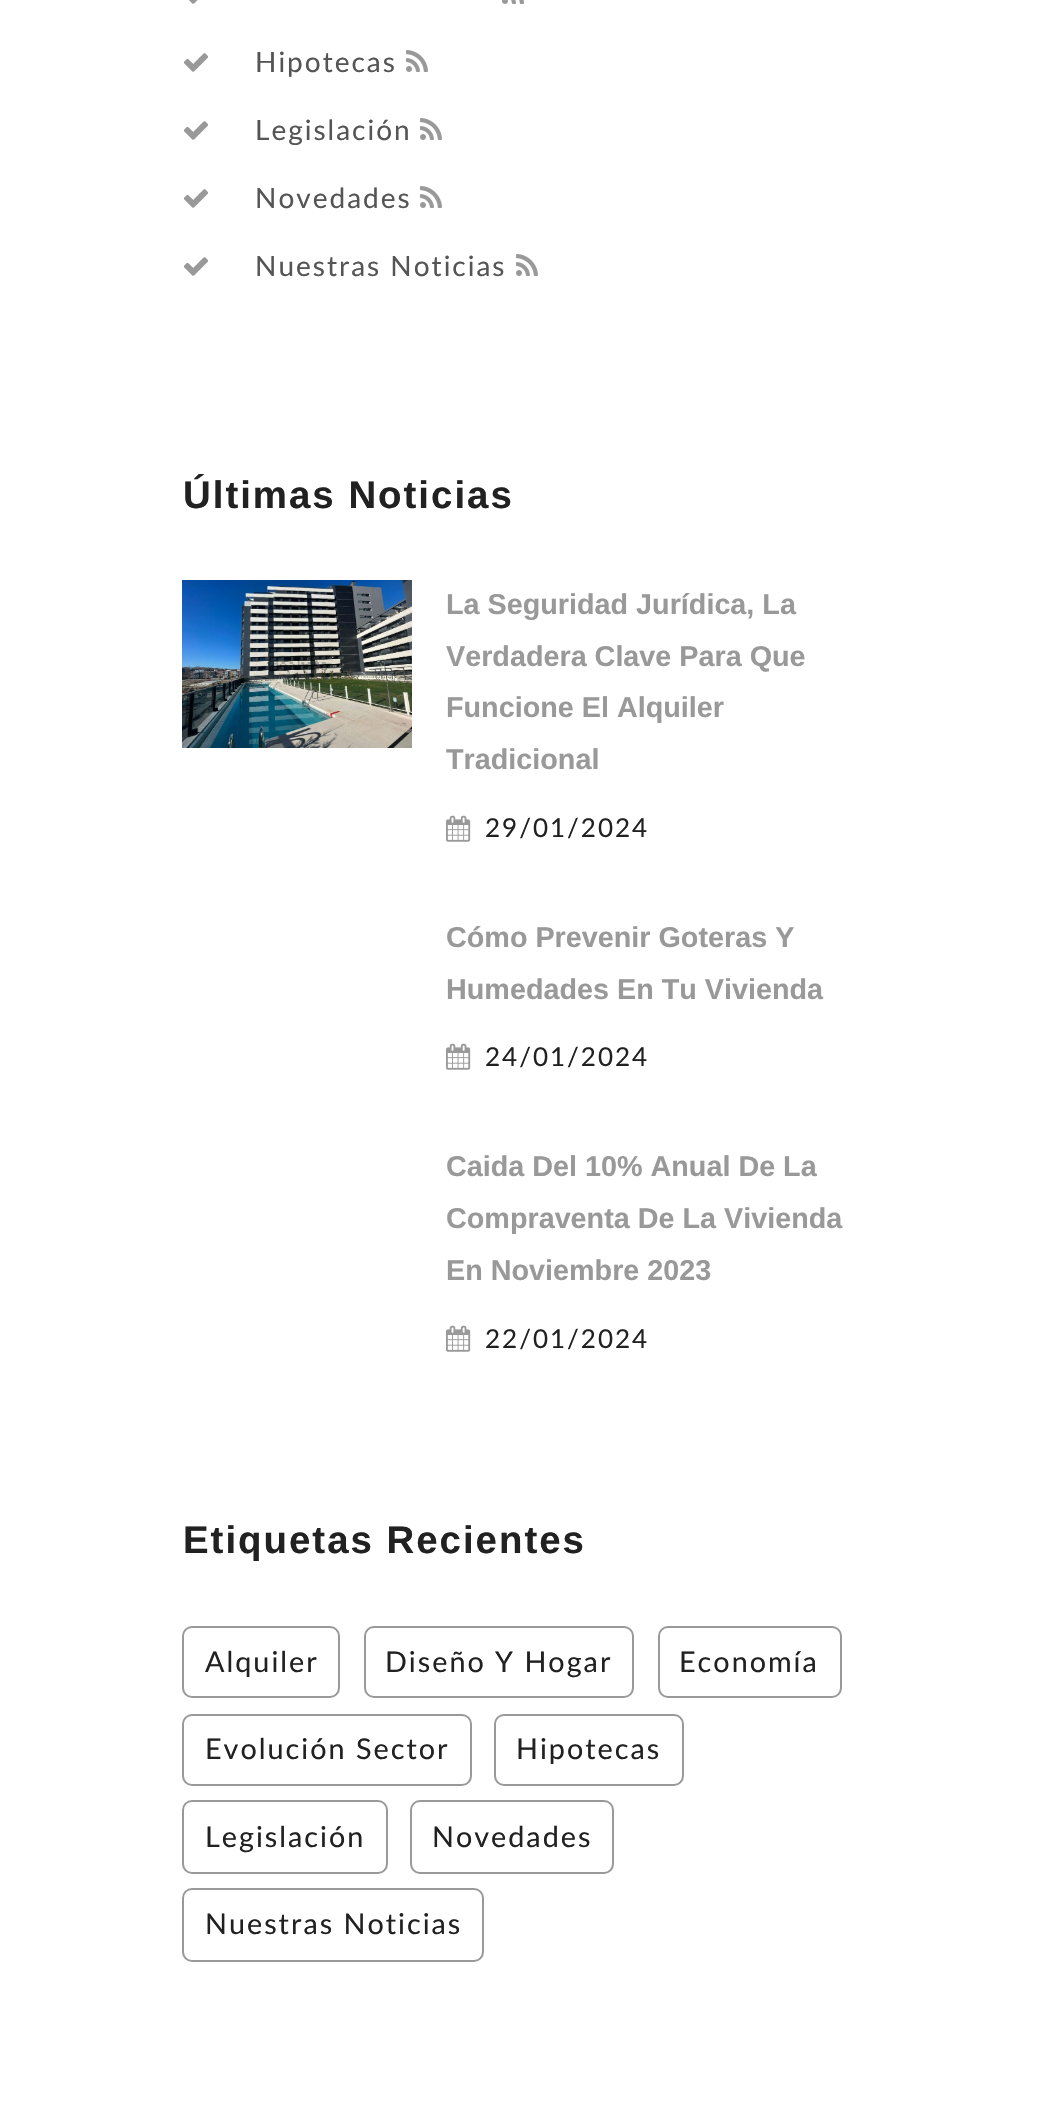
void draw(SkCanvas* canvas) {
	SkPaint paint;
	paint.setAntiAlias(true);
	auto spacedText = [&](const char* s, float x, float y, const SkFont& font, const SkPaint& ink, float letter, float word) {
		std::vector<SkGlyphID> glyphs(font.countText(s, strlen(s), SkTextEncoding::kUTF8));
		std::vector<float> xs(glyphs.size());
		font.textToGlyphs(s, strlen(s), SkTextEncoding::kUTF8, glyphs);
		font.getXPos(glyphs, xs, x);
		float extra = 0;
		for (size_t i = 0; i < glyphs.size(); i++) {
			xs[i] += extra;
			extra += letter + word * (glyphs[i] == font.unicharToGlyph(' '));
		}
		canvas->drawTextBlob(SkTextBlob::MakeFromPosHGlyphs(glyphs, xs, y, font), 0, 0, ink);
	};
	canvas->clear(0xffffffff);
	canvas->drawImageRect(SkImages::DeferredFromEncodedData(SkData::MakeFromFileName("img1.png")), SkRect::MakeXYWH(189, 0, 9, 4), SkSamplingOptions());
	canvas->drawImageRect(SkImages::DeferredFromEncodedData(SkData::MakeFromFileName("img2.png")), SkRect::MakeXYWH(502, 0, 22, 4), SkSamplingOptions());
	canvas->drawImageRect(SkImages::DeferredFromEncodedData(SkData::MakeFromFileName("img3.png")), SkRect::MakeXYWH(183, 53, 26, 19), SkSamplingOptions());
	SkFont f1(fontMgr->matchFamilyStyle("Lato", SkFontStyle::Normal()), 28);
	f1.setSubpixel(true);
	paint.setColor(0xff555555);
	spacedText("Hipotecas", 255, 72, f1, paint, 2, 0);
	canvas->drawImageRect(SkImages::DeferredFromEncodedData(SkData::MakeFromFileName("img4.png")), SkRect::MakeXYWH(406, 50, 22, 22), SkSamplingOptions());
	canvas->drawImageRect(SkImages::DeferredFromEncodedData(SkData::MakeFromFileName("img3.png")), SkRect::MakeXYWH(183, 121, 26, 19), SkSamplingOptions());
	spacedText("Legislación", 255, 140, f1, paint, 2, 0);
	canvas->drawImageRect(SkImages::DeferredFromEncodedData(SkData::MakeFromFileName("img4.png")), SkRect::MakeXYWH(420, 118, 22, 22), SkSamplingOptions());
	canvas->drawImageRect(SkImages::DeferredFromEncodedData(SkData::MakeFromFileName("img3.png")), SkRect::MakeXYWH(183, 189, 26, 19), SkSamplingOptions());
	spacedText("Novedades", 255, 208, f1, paint, 2, 0);
	canvas->drawImageRect(SkImages::DeferredFromEncodedData(SkData::MakeFromFileName("img4.png")), SkRect::MakeXYWH(420, 186, 22, 22), SkSamplingOptions());
	canvas->drawImageRect(SkImages::DeferredFromEncodedData(SkData::MakeFromFileName("img3.png")), SkRect::MakeXYWH(183, 257, 26, 19), SkSamplingOptions());
	spacedText("Nuestras Noticias", 255, 276, f1, paint, 2, 0);
	canvas->drawImageRect(SkImages::DeferredFromEncodedData(SkData::MakeFromFileName("img4.png")), SkRect::MakeXYWH(516, 254, 22, 22), SkSamplingOptions());
	SkFont f2(fontMgr->matchFamilyStyle("Liberation Sans", SkFontStyle::Bold()), 38.4);
	f2.setSubpixel(true);
	paint.setColor(0xff212121);
	spacedText("Últimas Noticias", 183, 508, f2, paint, 2, 0);
	canvas->drawImageRect(SkImages::DeferredFromEncodedData(SkData::MakeFromFileName("img5.png")), SkRect::MakeXYWH(182, 580, 230, 168), SkSamplingOptions());
	SkFont f3(fontMgr->matchFamilyStyle("Liberation Sans", SkFontStyle::Bold()), 28.75);
	f3.setSubpixel(true);
	paint.setColor(0xff999999);
	canvas->drawString("La Seguridad Jurídica, La", 446, 614, f3, paint);
	canvas->drawString("Verdadera Clave Para Que", 446, 666, f3, paint);
	canvas->drawString("Funcione El Alquiler", 446, 717, f3, paint);
	canvas->drawString("Tradicional", 446, 769, f3, paint);
	canvas->drawImageRect(SkImages::DeferredFromEncodedData(SkData::MakeFromFileName("img6.png")), SkRect::MakeXYWH(446, 815, 25, 27), SkSamplingOptions());
	SkFont f4(fontMgr->matchFamilyStyle("Lato", SkFontStyle::Normal()), 26);
	f4.setSubpixel(true);
	paint.setColor(0xff212121);
	spacedText("29/01/2024", 485, 837, f4, paint, 2, 0);
	paint.setColor(0xff999999);
	canvas->drawString("Cómo Prevenir Goteras Y", 446, 947, f3, paint);
	canvas->drawString("Humedades En Tu Vivienda", 446, 999, f3, paint);
	canvas->drawImageRect(SkImages::DeferredFromEncodedData(SkData::MakeFromFileName("img6.png")), SkRect::MakeXYWH(446, 1043, 25, 27), SkSamplingOptions());
	paint.setColor(0xff212121);
	spacedText("24/01/2024", 485, 1066, f4, paint, 2, 0);
	paint.setColor(0xff999999);
	canvas->drawString("Caida Del 10% Anual De La", 446, 1176, f3, paint);
	canvas->drawString("Compraventa De La Vivienda", 446, 1228, f3, paint);
	canvas->drawString("En Noviembre 2023", 446, 1280, f3, paint);
	canvas->drawImageRect(SkImages::DeferredFromEncodedData(SkData::MakeFromFileName("img6.png")), SkRect::MakeXYWH(446, 1325, 25, 27), SkSamplingOptions());
	paint.setColor(0xff212121);
	spacedText("22/01/2024", 485, 1348, f4, paint, 2, 0);
	spacedText("Etiquetas Recientes", 183, 1553, f2, paint, 2, 0);
	paint.setStroke(true);
	paint.setStrokeWidth(2);
	paint.setColor(0xff999999);
	canvas->drawRoundRect(SkRect::MakeXYWH(183, 1627, 156, 70), 9, 9, paint);
	SkFont f5(fontMgr->matchFamilyStyle("Lato", SkFontStyle::Normal()), 28.75);
	f5.setSubpixel(true);
	paint.setStroke(false);
	paint.setColor(0xff212121);
	spacedText("Alquiler", 205, 1672, f5, paint, 2, 0);
	paint.setStroke(true);
	paint.setColor(0xff999999);
	canvas->drawRoundRect(SkRect::MakeXYWH(365, 1627, 268, 70), 9, 9, paint);
	paint.setStroke(false);
	paint.setColor(0xff212121);
	spacedText("Diseño Y Hogar", 385, 1672, f5, paint, 2, 0);
	paint.setStroke(true);
	paint.setColor(0xff999999);
	canvas->drawRoundRect(SkRect::MakeXYWH(659, 1627, 182, 70), 9, 9, paint);
	paint.setStroke(false);
	paint.setColor(0xff212121);
	spacedText("Economía", 679, 1672, f5, paint, 2, 0);
	paint.setStroke(true);
	paint.setColor(0xff999999);
	canvas->drawRoundRect(SkRect::MakeXYWH(183, 1715, 288, 70), 9, 9, paint);
	paint.setStroke(false);
	paint.setColor(0xff212121);
	spacedText("Evolución Sector", 205, 1759, f5, paint, 2, 0);
	paint.setStroke(true);
	paint.setColor(0xff999999);
	canvas->drawRoundRect(SkRect::MakeXYWH(495, 1715, 188, 70), 9, 9, paint);
	paint.setStroke(false);
	paint.setColor(0xff212121);
	spacedText("Hipotecas", 516, 1759, f5, paint, 2, 0);
	paint.setStroke(true);
	paint.setColor(0xff999999);
	canvas->drawRoundRect(SkRect::MakeXYWH(183, 1801, 204, 72), 9, 9, paint);
	paint.setStroke(false);
	paint.setColor(0xff212121);
	spacedText("Legislación", 205, 1847, f5, paint, 2, 0);
	paint.setStroke(true);
	paint.setColor(0xff999999);
	canvas->drawRoundRect(SkRect::MakeXYWH(411, 1801, 202, 72), 9, 9, paint);
	paint.setStroke(false);
	paint.setColor(0xff212121);
	spacedText("Novedades", 432, 1847, f5, paint, 2, 0);
	paint.setStroke(true);
	paint.setColor(0xff999999);
	canvas->drawRoundRect(SkRect::MakeXYWH(183, 1889, 300, 72), 9, 9, paint);
	paint.setStroke(false);
	paint.setColor(0xff212121);
	spacedText("Nuestras Noticias", 205, 1934, f5, paint, 2, 0);
}
